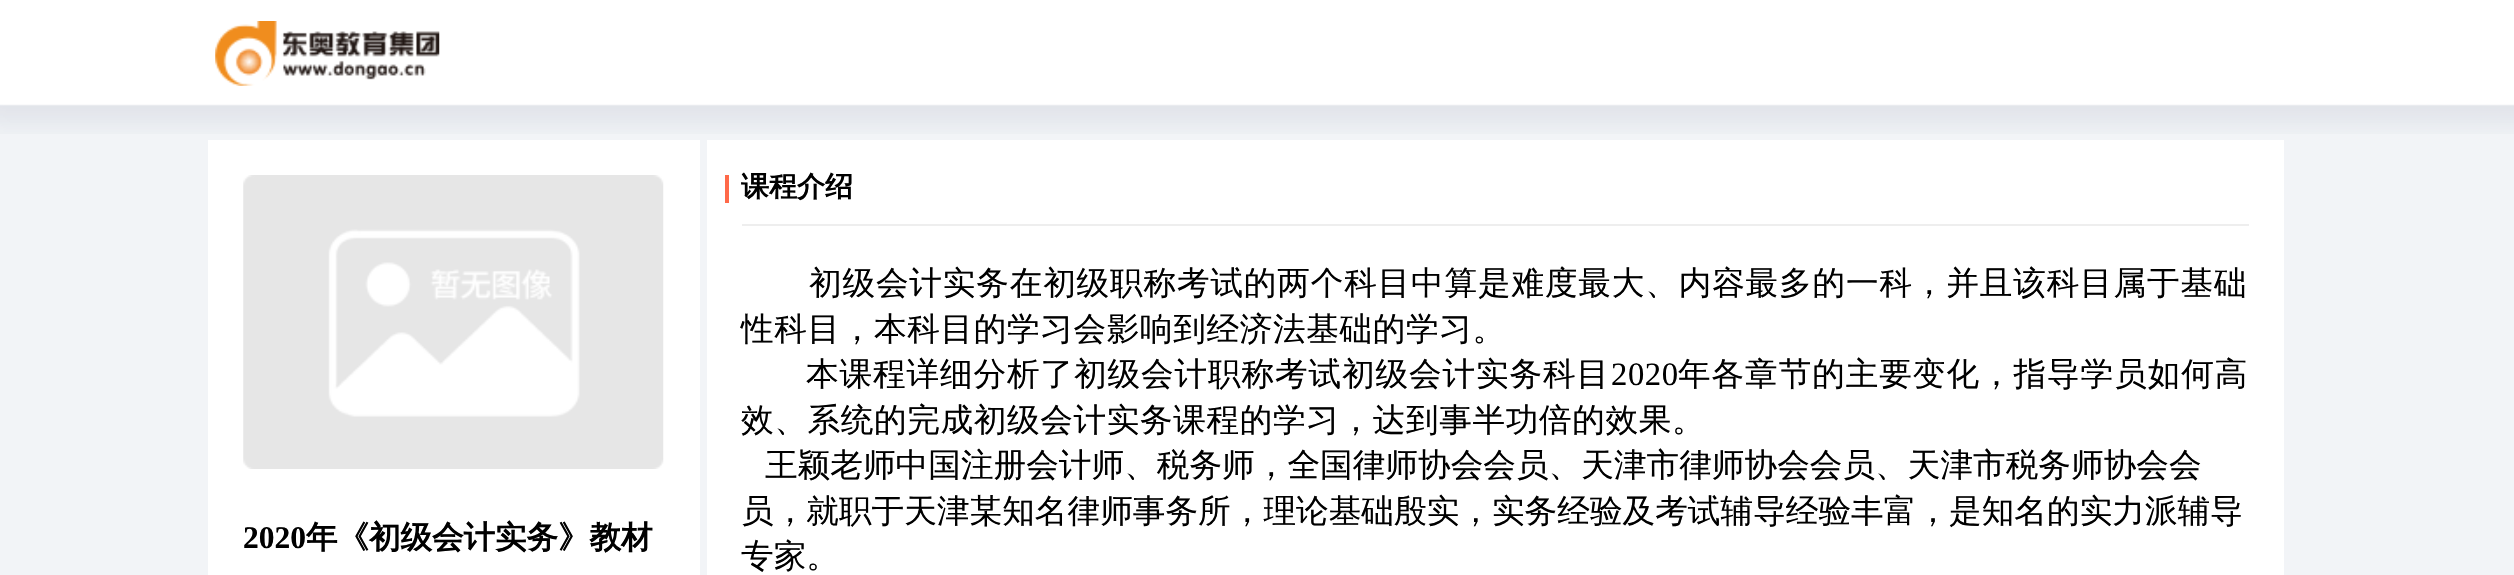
void draw(SkCanvas* canvas) {
	SkPaint paint;
	paint.setAntiAlias(true);
	auto spacedText = [&](const char* s, float x, float y, const SkFont& font, const SkPaint& ink, float letter, float word) {
		std::vector<SkGlyphID> glyphs(font.countText(s, strlen(s), SkTextEncoding::kUTF8));
		std::vector<float> xs(glyphs.size());
		font.textToGlyphs(s, strlen(s), SkTextEncoding::kUTF8, glyphs);
		font.getXPos(glyphs, xs, x);
		float extra = 0;
		for (size_t i = 0; i < glyphs.size(); i++) {
			xs[i] += extra;
			extra += letter + word * (glyphs[i] == font.unicharToGlyph(' '));
		}
		canvas->drawTextBlob(SkTextBlob::MakeFromPosHGlyphs(glyphs, xs, y, font), 0, 0, ink);
	};
	canvas->clear(0xfff2f4f7);
	canvas->drawImageRect(SkImages::DeferredFromEncodedData(SkData::MakeFromFileName("img1.png")), SkRect::MakeXYWH(0, 0, 2514, 134), SkSamplingOptions());
	canvas->drawImageRect(SkImages::DeferredFromEncodedData(SkData::MakeFromFileName("img2.png")), SkRect::MakeXYWH(215, 21, 225, 65), SkSamplingOptions());
	paint.setColor(0xffffffff);
	canvas->drawRect(SkRect::MakeXYWH(208, 140, 492, 435), paint);
	canvas->drawImageRect(SkImages::DeferredFromEncodedData(SkData::MakeFromFileName("img3.png")), SkRect::MakeXYWH(243, 175, 421, 294), SkSamplingOptions());
	SkFont f1(fontMgr->matchFamilyStyle("Liberation Serif", SkFontStyle::Bold()), 31.5);
	f1.setSubpixel(true);
	paint.setColor(0xff000000);
	canvas->drawString("2020", 243, 548, f1, paint);
	SkFont f2(fontMgr->matchFamilyStyle("WenQuanYi Zen Hei", SkFontStyle::Bold()), 31.5);
	f2.setSubpixel(true);
	canvas->drawString("年《初级会计实务》教材", 306, 548, f2, paint);
	paint.setColor(0xffffffff);
	canvas->drawRect(SkRect::MakeXYWH(707, 140, 1577, 435), paint);
	paint.setColor(0xffff6949);
	canvas->drawRect(SkRect::MakeXYWH(725, 175, 4, 28), paint);
	SkFont f3(fontMgr->matchFamilyStyle("WenQuanYi Zen Hei", SkFontStyle::Bold()), 28);
	f3.setSubpixel(true);
	paint.setColor(0xff000000);
	canvas->drawString("课程介绍", 741, 196, f3, paint);
	paint.setColor(0xffeeeeee);
	canvas->drawRect(SkRect::MakeXYWH(742, 224, 1507, 2), paint);
	SkFont f4(fontMgr->matchFamilyStyle("WenQuanYi Zen Hei", SkFontStyle(500, SkFontStyle::kNormal_Width, SkFontStyle::kUpright_Slant)), 32.65);
	f4.setSubpixel(true);
	paint.setColor(0xff000000);
	spacedText("初级会计实务在初级职称考试的两个科目中算是难度最大、内容最多的一科，并且该科目属于基础", 809, 294, f4, paint, 0.8, 0);
	spacedText("性科目，本科目的学习会影响到经济法基础的学习。", 741, 340, f4, paint, 0.6, 0);
	spacedText("本课程详细分析了初级会计职称考试初级会计实务科目", 806, 385, f4, paint, 0.85, 0);
	SkFont f5(fontMgr->matchFamilyStyle("Liberation Serif", SkFontStyle::Normal()), 32.65);
	f5.setSubpixel(true);
	spacedText("2020", 1611, 385, f5, paint, 0.6, 0);
	spacedText("年各章节的主要变化，指导学员如何高", 1678, 385, f4, paint, 0.9, 0);
	spacedText("效、系统的完成初级会计实务课程的学习，达到事半功倍的效果。", 741, 431, f4, paint, 0.6, 0);
	canvas->drawString("王颖老师中国注册会计师、税务师，全国律师协会会员、天津市律师协会会员、天津市税务师协会会", 765, 476, f4, paint);
	canvas->drawString("员，就职于天津某知名律师事务所，理论基础殷实，实务经验及考试辅导经验丰富，是知名的实力派辅导", 741, 522, f4, paint);
	canvas->drawString("专家。", 741, 567, f4, paint);
}
